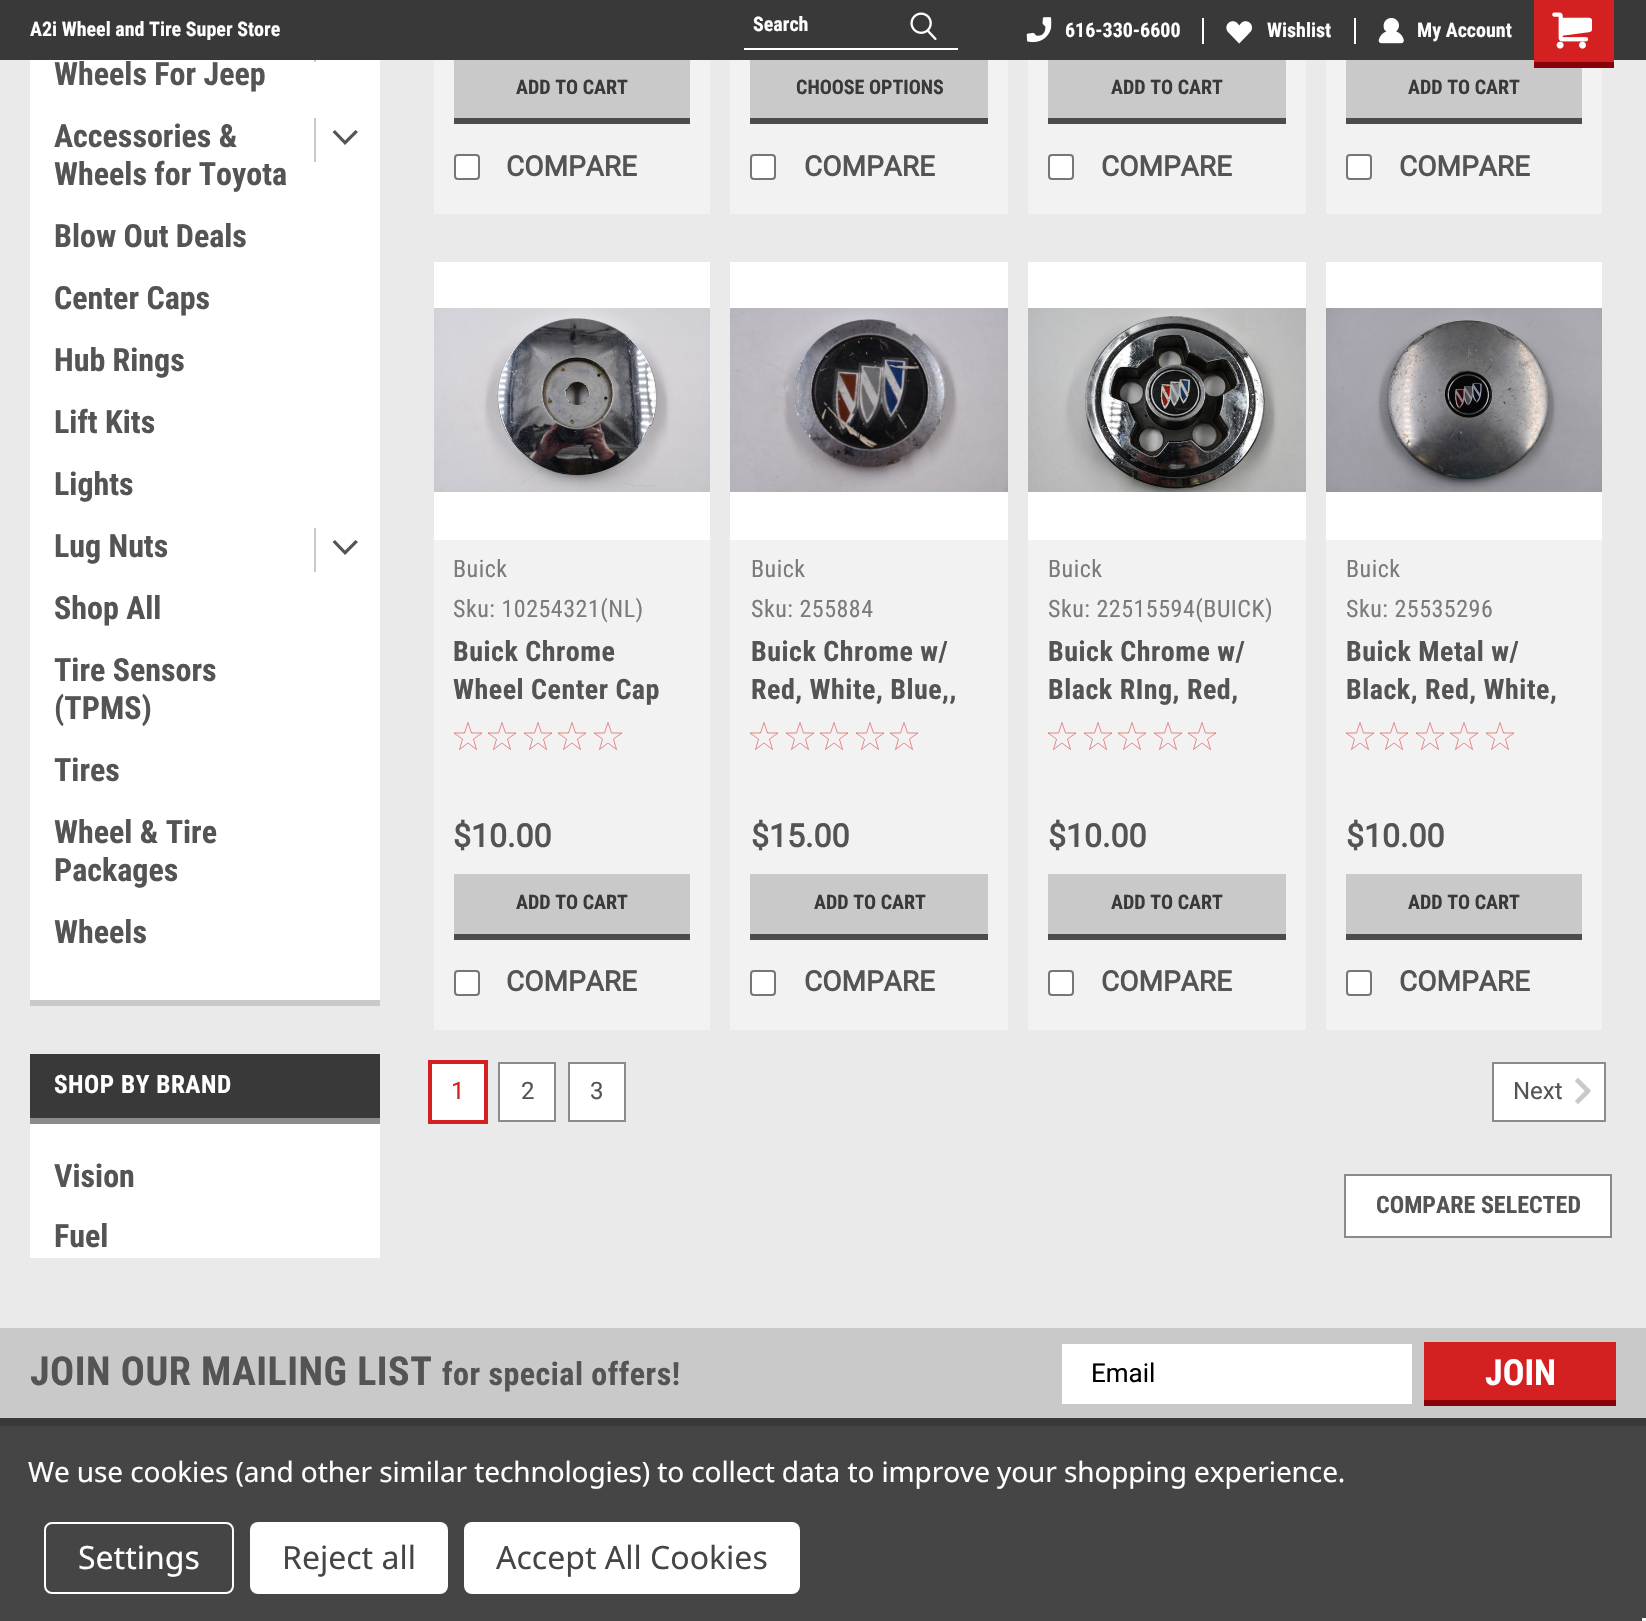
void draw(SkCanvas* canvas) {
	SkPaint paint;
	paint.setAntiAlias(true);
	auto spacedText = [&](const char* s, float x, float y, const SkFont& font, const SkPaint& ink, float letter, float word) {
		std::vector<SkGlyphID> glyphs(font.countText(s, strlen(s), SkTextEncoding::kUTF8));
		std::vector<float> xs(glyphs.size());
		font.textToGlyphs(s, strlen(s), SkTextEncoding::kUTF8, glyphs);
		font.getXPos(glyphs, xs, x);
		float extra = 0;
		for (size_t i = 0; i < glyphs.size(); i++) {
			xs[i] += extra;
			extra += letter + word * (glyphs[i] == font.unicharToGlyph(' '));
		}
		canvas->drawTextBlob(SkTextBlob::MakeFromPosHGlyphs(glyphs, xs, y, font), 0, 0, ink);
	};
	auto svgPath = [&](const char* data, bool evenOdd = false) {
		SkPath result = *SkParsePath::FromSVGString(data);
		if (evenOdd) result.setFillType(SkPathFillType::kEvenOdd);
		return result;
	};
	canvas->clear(0xffeaeaea);
	paint.setColor(0xff393939);
	canvas->drawRect(SkRect::MakeXYWH(0, 0, 1646, 60), paint);
	SkFont f1(fontMgr->matchFamilyStyle("Roboto Condensed", SkFontStyle::Bold()), 20);
	f1.setSubpixel(true);
	paint.setColor(0xffffffff);
	canvas->drawString("A2i Wheel and Tire Super Store", 30, 36, f1, paint);
	canvas->drawRect(SkRect::MakeXYWH(744, 48, 214, 2), paint);
	canvas->drawString("Search", 753, 31, f1, paint);
	canvas->drawImageRect(SkImages::DeferredFromEncodedData(SkData::MakeFromFileName("img1.png")), SkRect::MakeXYWH(910, 12, 27, 29), SkSamplingOptions());
	canvas->drawRect(SkRect::MakeXYWH(1202, 18, 2, 26), paint);
	canvas->drawImageRect(SkImages::DeferredFromEncodedData(SkData::MakeFromFileName("img2.png")), SkRect::MakeXYWH(1026, 17, 26, 26), SkSamplingOptions());
	canvas->drawString("616-330-6600", 1065, 37, f1, paint);
	canvas->drawRect(SkRect::MakeXYWH(1354, 18, 2, 26), paint);
	canvas->drawImageRect(SkImages::DeferredFromEncodedData(SkData::MakeFromFileName("img3.png")), SkRect::MakeXYWH(1226, 21, 26, 23), SkSamplingOptions());
	canvas->drawString("Wishlist", 1267, 37, f1, paint);
	canvas->drawImageRect(SkImages::DeferredFromEncodedData(SkData::MakeFromFileName("img4.png")), SkRect::MakeXYWH(1378, 18, 26, 26), SkSamplingOptions());
	canvas->drawString("My Account", 1417, 37, f1, paint);
	paint.setColor(0xfff2f2f2);
	canvas->drawRect(SkRect::MakeXYWH(1326, 60, 276, 154), paint);
	paint.setColor(0xffcac9c9);
	canvas->drawRect(SkRect::MakeXYWH(1346, 60, 236, 58), paint);
	paint.setColor(0xffd42020);
	canvas->drawRect(SkRect::MakeXYWH(1534, 0, 80, 62), paint);
	paint.setColor(0xff860109);
	canvas->drawRect(SkRect::MakeXYWH(1534, 62, 80, 6), paint);
	canvas->drawImageRect(SkImages::DeferredFromEncodedData(SkData::MakeFromFileName("img5.png")), SkRect::MakeXYWH(1552, 12, 40, 37), SkSamplingOptions());
	paint.setColor(0xffcac9c9);
	canvas->drawRect(SkRect::MakeXYWH(30, 1000, 358, 6), paint);
	paint.setColor(0xffffffff);
	canvas->drawRect(SkRect::MakeXYWH(30, 60, 350, 940), paint);
	SkFont f2(fontMgr->matchFamilyStyle("Roboto Condensed", SkFontStyle::Bold()), 32);
	f2.setSubpixel(true);
	paint.setColor(0xff545454);
	canvas->drawString("Wheels For Jeep", 54, 85, f2, paint);
	paint.setColor(0xffcac9c9);
	canvas->drawRect(SkRect::MakeXYWH(314, 60, 2, 2), paint);
	paint.setColor(0xff545454);
	canvas->drawString("Accessories &", 54, 147, f2, paint);
	canvas->drawString("Wheels for Toyota", 54, 185, f2, paint);
	paint.setColor(0xffcac9c9);
	canvas->drawRect(SkRect::MakeXYWH(314, 118, 2, 44), paint);
	paint.setColor(0xff545454);
	canvas->drawPath(svgPath("M358 132L345 145L332.5 132L335 130L345 140.5L355.5 130Z"), paint);
	canvas->drawString("Blow Out Deals", 54, 247, f2, paint);
	canvas->drawString("Center Caps", 54, 309, f2, paint);
	canvas->drawString("Hub Rings", 54, 371, f2, paint);
	canvas->drawString("Lift Kits", 54, 433, f2, paint);
	canvas->drawString("Lights", 54, 495, f2, paint);
	canvas->drawString("Lug Nuts", 54, 557, f2, paint);
	paint.setColor(0xffcac9c9);
	canvas->drawRect(SkRect::MakeXYWH(314, 528, 2, 44), paint);
	paint.setColor(0xff545454);
	canvas->drawPath(svgPath("M358 542L345 555L332.5 542L335 540L345 550.5L355.5 540Z"), paint);
	canvas->drawString("Shop All", 54, 619, f2, paint);
	canvas->drawString("Tire Sensors", 54, 681, f2, paint);
	canvas->drawString("(TPMS)", 54, 719, f2, paint);
	canvas->drawString("Tires", 54, 781, f2, paint);
	canvas->drawString("Wheel & Tire", 54, 843, f2, paint);
	canvas->drawString("Packages", 54, 881, f2, paint);
	canvas->drawString("Wheels", 54, 943, f2, paint);
	paint.setColor(0xff393939);
	canvas->drawRect(SkRect::MakeXYWH(30, 1054, 350, 64), paint);
	paint.setColor(0xff8b8b8b);
	canvas->drawRect(SkRect::MakeXYWH(30, 1118, 358, 6), paint);
	SkFont f3(fontMgr->matchFamilyStyle("Roboto Condensed", SkFontStyle::Bold()), 25.25);
	f3.setSubpixel(true);
	paint.setColor(0xffffffff);
	spacedText("SHOP BY BRAND", 54, 1093, f3, paint, 0.5, 0);
	canvas->drawRect(SkRect::MakeXYWH(30, 1124, 350, 134), paint);
	paint.setColor(0xff545454);
	canvas->drawString("Vision", 54, 1187, f2, paint);
	canvas->drawString("Fuel", 54, 1247, f2, paint);
	paint.setColor(0xffeaeaea);
	canvas->drawRect(SkRect::MakeXYWH(380, 1000, 8, 124), paint);
	paint.setColor(0xfff2f2f2);
	canvas->drawRect(SkRect::MakeXYWH(434, 60, 276, 154), paint);
	paint.setColor(0xffcac9c9);
	canvas->drawRect(SkRect::MakeXYWH(454, 60, 236, 58), paint);
	paint.setColor(0xff4c4c4c);
	canvas->drawRect(SkRect::MakeXYWH(454, 118, 236, 6), paint);
	paint.setColor(0xff393939);
	canvas->drawString("ADD TO CART", 516, 94, f1, paint);
	paint.setColor(0xffffffff);
	canvas->drawRoundRect(SkRect::MakeXYWH(455, 155, 24, 24), 3, 3, paint);
	paint.setStroke(true);
	paint.setStrokeWidth(2);
	paint.setColor(0xff767676);
	canvas->drawRoundRect(SkRect::MakeXYWH(455, 155, 24, 24), 3, 3, paint);
	SkFont f4(fontMgr->matchFamilyStyle("Roboto", SkFontStyle::Bold()), 28);
	f4.setSubpixel(true);
	paint.setStroke(false);
	paint.setColor(0xff545454);
	canvas->drawString("COMPARE", 506, 176, f4, paint);
	paint.setColor(0xfff2f2f2);
	canvas->drawRect(SkRect::MakeXYWH(730, 60, 278, 154), paint);
	paint.setColor(0xffcac9c9);
	canvas->drawRect(SkRect::MakeXYWH(750, 60, 238, 58), paint);
	paint.setColor(0xff4c4c4c);
	canvas->drawRect(SkRect::MakeXYWH(750, 118, 238, 6), paint);
	paint.setColor(0xff393939);
	canvas->drawString("CHOOSE OPTIONS", 796, 94, f1, paint);
	paint.setColor(0xffffffff);
	canvas->drawRoundRect(SkRect::MakeXYWH(751, 155, 24, 24), 3, 3, paint);
	paint.setStroke(true);
	paint.setColor(0xff767676);
	canvas->drawRoundRect(SkRect::MakeXYWH(751, 155, 24, 24), 3, 3, paint);
	paint.setStroke(false);
	paint.setColor(0xff545454);
	canvas->drawString("COMPARE", 804, 176, f4, paint);
	paint.setColor(0xfff2f2f2);
	canvas->drawRect(SkRect::MakeXYWH(1028, 60, 278, 154), paint);
	paint.setColor(0xffcac9c9);
	canvas->drawRect(SkRect::MakeXYWH(1048, 60, 238, 58), paint);
	paint.setColor(0xff4c4c4c);
	canvas->drawRect(SkRect::MakeXYWH(1048, 118, 238, 6), paint);
	paint.setColor(0xff393939);
	canvas->drawString("ADD TO CART", 1111, 94, f1, paint);
	paint.setColor(0xffffffff);
	canvas->drawRoundRect(SkRect::MakeXYWH(1049, 155, 24, 24), 3, 3, paint);
	paint.setStroke(true);
	paint.setColor(0xff767676);
	canvas->drawRoundRect(SkRect::MakeXYWH(1049, 155, 24, 24), 3, 3, paint);
	paint.setStroke(false);
	paint.setColor(0xff545454);
	canvas->drawString("COMPARE", 1101, 176, f4, paint);
	paint.setColor(0xff4c4c4c);
	canvas->drawRect(SkRect::MakeXYWH(1346, 118, 236, 6), paint);
	paint.setColor(0xff393939);
	canvas->drawString("ADD TO CART", 1408, 94, f1, paint);
	paint.setColor(0xffffffff);
	canvas->drawRoundRect(SkRect::MakeXYWH(1347, 155, 24, 24), 3, 3, paint);
	paint.setStroke(true);
	paint.setColor(0xff767676);
	canvas->drawRoundRect(SkRect::MakeXYWH(1347, 155, 24, 24), 3, 3, paint);
	paint.setStroke(false);
	paint.setColor(0xff545454);
	canvas->drawString("COMPARE", 1399, 176, f4, paint);
	paint.setColor(0xfff2f2f2);
	canvas->drawRect(SkRect::MakeXYWH(434, 540, 276, 490), paint);
	paint.setColor(0xffffffff);
	canvas->drawRect(SkRect::MakeXYWH(434, 262, 276, 278), paint);
	canvas->drawImageRect(SkImages::DeferredFromEncodedData(SkData::MakeFromFileName("img6.png")), SkRect::MakeXYWH(434, 308, 276, 184), SkSamplingOptions());
	SkFont f5(fontMgr->matchFamilyStyle("Roboto Condensed", SkFontStyle::Normal()), 24);
	f5.setSubpixel(true);
	paint.setColor(0xff7b7b7b);
	spacedText("Buick", 453, 577, f5, paint, 0.5, 0);
	spacedText("Sku: 10254321(NL)", 453, 617, f5, paint, 0.5, 0);
	SkFont f6(fontMgr->matchFamilyStyle("Roboto Condensed", SkFontStyle::Bold()), 28);
	f6.setSubpixel(true);
	paint.setColor(0xff545454);
	spacedText("Buick Chrome", 453, 661, f6, paint, 0.5, 0);
	spacedText("Wheel Center Cap", 453, 699, f6, paint, 0.5, 0);
	canvas->save();
	canvas->clipRect(SkRect::MakeXYWH(454, 722, 28, 28));
	paint.setStroke(true);
	paint.setStrokeWidth(0.5);
	paint.setColor(0xffd42020);
	canvas->drawPath(svgPath("M468 722.5L471.5 733H482L473.5 739L476.5 749.5L468 743L459.5 749.5L462.5 739L454 733H464.5Z"), paint);
	canvas->restore();
	canvas->save();
	canvas->clipRect(SkRect::MakeXYWH(488, 722, 28, 28));
	canvas->drawPath(svgPath("M502 722.5L505.5 733H516L507.5 739L510.5 749.5L502 743L493.5 749.5L496.5 739L488 733H498.5Z"), paint);
	canvas->restore();
	canvas->save();
	canvas->clipRect(SkRect::MakeXYWH(524, 722, 28, 28));
	canvas->drawPath(svgPath("M538 722.5L541.5 733H552L543.5 739L546.5 749.5L538 743L529.5 749.5L532.5 739L524 733H534.5Z"), paint);
	canvas->restore();
	canvas->save();
	canvas->clipRect(SkRect::MakeXYWH(558, 722, 28, 28));
	canvas->drawPath(svgPath("M572 722.5L575.5 733H586L577.5 739L580.5 749.5L572 743L563.5 749.5L566.5 739L558 733H568.5Z"), paint);
	canvas->restore();
	canvas->save();
	canvas->clipRect(SkRect::MakeXYWH(594, 722, 28, 28));
	canvas->drawPath(svgPath("M608 722.5L611.5 733H622L613.5 739L616.5 749.5L608 743L599.5 749.5L602.5 739L594 733H604.5Z"), paint);
	canvas->restore();
	SkFont f7(fontMgr->matchFamilyStyle("Roboto", SkFontStyle::Bold()), 32);
	f7.setSubpixel(true);
	paint.setStroke(false);
	paint.setColor(0xff545454);
	canvas->drawString("$10.00", 453, 847, f7, paint);
	paint.setColor(0xffcac9c9);
	canvas->drawRect(SkRect::MakeXYWH(454, 874, 236, 60), paint);
	paint.setColor(0xff4c4c4c);
	canvas->drawRect(SkRect::MakeXYWH(454, 934, 236, 6), paint);
	paint.setColor(0xff393939);
	canvas->drawString("ADD TO CART", 516, 909, f1, paint);
	paint.setColor(0xffffffff);
	canvas->drawRoundRect(SkRect::MakeXYWH(455, 971, 24, 24), 3, 3, paint);
	paint.setStroke(true);
	paint.setStrokeWidth(2);
	paint.setColor(0xff767676);
	canvas->drawRoundRect(SkRect::MakeXYWH(455, 971, 24, 24), 3, 3, paint);
	paint.setStroke(false);
	paint.setColor(0xff545454);
	canvas->drawString("COMPARE", 506, 991, f4, paint);
	paint.setColor(0xfff2f2f2);
	canvas->drawRect(SkRect::MakeXYWH(730, 540, 278, 490), paint);
	paint.setColor(0xffffffff);
	canvas->drawRect(SkRect::MakeXYWH(730, 262, 278, 278), paint);
	canvas->drawImageRect(SkImages::DeferredFromEncodedData(SkData::MakeFromFileName("img7.png")), SkRect::MakeXYWH(730, 308, 278, 184), SkSamplingOptions());
	paint.setColor(0xff7b7b7b);
	spacedText("Buick", 751, 577, f5, paint, 0.5, 0);
	spacedText("Sku: 255884", 751, 617, f5, paint, 0.5, 0);
	paint.setColor(0xff545454);
	spacedText("Buick Chrome w/", 751, 661, f6, paint, 0.5, 0);
	spacedText("Red, White, Blue,,", 751, 699, f6, paint, 0.5, 0);
	canvas->save();
	canvas->clipRect(SkRect::MakeXYWH(750, 722, 28, 28));
	paint.setStroke(true);
	paint.setStrokeWidth(0.5);
	paint.setColor(0xffd42020);
	canvas->drawPath(svgPath("M764 722.5L767.5 733H778L769.5 739L772.5 749.5L764 743L755.5 749.5L758.5 739L750 733H760.5Z"), paint);
	canvas->restore();
	canvas->save();
	canvas->clipRect(SkRect::MakeXYWH(786, 722, 28, 28));
	canvas->drawPath(svgPath("M800 722.5L803.5 733H814L805.5 739L808.5 749.5L800 743L791.5 749.5L794.5 739L786 733H796.5Z"), paint);
	canvas->restore();
	canvas->save();
	canvas->clipRect(SkRect::MakeXYWH(820, 722, 28, 28));
	canvas->drawPath(svgPath("M834 722.5L837.5 733H848L839.5 739L842.5 749.5L834 743L825.5 749.5L828.5 739L820 733H830.5Z"), paint);
	canvas->restore();
	canvas->save();
	canvas->clipRect(SkRect::MakeXYWH(856, 722, 28, 28));
	canvas->drawPath(svgPath("M870 722.5L873.5 733H884L875.5 739L878.5 749.5L870 743L861.5 749.5L864.5 739L856 733H866.5Z"), paint);
	canvas->restore();
	canvas->save();
	canvas->clipRect(SkRect::MakeXYWH(890, 722, 28, 28));
	canvas->drawPath(svgPath("M904 722.5L907.5 733H918L909.5 739L912.5 749.5L904 743L895.5 749.5L898.5 739L890 733H900.5Z"), paint);
	canvas->restore();
	paint.setStroke(false);
	paint.setColor(0xff545454);
	canvas->drawString("$15.00", 751, 847, f7, paint);
	paint.setColor(0xffcac9c9);
	canvas->drawRect(SkRect::MakeXYWH(750, 874, 238, 60), paint);
	paint.setColor(0xff4c4c4c);
	canvas->drawRect(SkRect::MakeXYWH(750, 934, 238, 6), paint);
	paint.setColor(0xff393939);
	canvas->drawString("ADD TO CART", 814, 909, f1, paint);
	paint.setColor(0xffffffff);
	canvas->drawRoundRect(SkRect::MakeXYWH(751, 971, 24, 24), 3, 3, paint);
	paint.setStroke(true);
	paint.setStrokeWidth(2);
	paint.setColor(0xff767676);
	canvas->drawRoundRect(SkRect::MakeXYWH(751, 971, 24, 24), 3, 3, paint);
	paint.setStroke(false);
	paint.setColor(0xff545454);
	canvas->drawString("COMPARE", 804, 991, f4, paint);
	paint.setColor(0xfff2f2f2);
	canvas->drawRect(SkRect::MakeXYWH(1028, 540, 278, 490), paint);
	paint.setColor(0xffffffff);
	canvas->drawRect(SkRect::MakeXYWH(1028, 262, 278, 278), paint);
	canvas->drawImageRect(SkImages::DeferredFromEncodedData(SkData::MakeFromFileName("img8.png")), SkRect::MakeXYWH(1028, 308, 278, 184), SkSamplingOptions());
	paint.setColor(0xff7b7b7b);
	spacedText("Buick", 1048, 577, f5, paint, 0.5, 0);
	spacedText("Sku: 22515594(BUICK)", 1048, 617, f5, paint, 0.5, 0);
	paint.setColor(0xff545454);
	spacedText("Buick Chrome w/", 1048, 661, f6, paint, 0.5, 0);
	spacedText("Black RIng, Red,", 1048, 699, f6, paint, 0.5, 0);
	canvas->save();
	canvas->clipRect(SkRect::MakeXYWH(1048, 722, 28, 28));
	paint.setStroke(true);
	paint.setStrokeWidth(0.5);
	paint.setColor(0xffd42020);
	canvas->drawPath(svgPath("M1062 722.5L1065.5 733H1076L1067.5 739L1070.5 749.5L1062 743L1053.5 749.5L1056.5 739L1048 733H1058.5Z"), paint);
	canvas->restore();
	canvas->save();
	canvas->clipRect(SkRect::MakeXYWH(1084, 722, 28, 28));
	canvas->drawPath(svgPath("M1098 722.5L1101.5 733H1112L1103.5 739L1106.5 749.5L1098 743L1089.5 749.5L1092.5 739L1084 733H1094.5Z"), paint);
	canvas->restore();
	canvas->save();
	canvas->clipRect(SkRect::MakeXYWH(1118, 722, 28, 28));
	canvas->drawPath(svgPath("M1132 722.5L1135.5 733H1146L1137.5 739L1140.5 749.5L1132 743L1123.5 749.5L1126.5 739L1118 733H1128.5Z"), paint);
	canvas->restore();
	canvas->save();
	canvas->clipRect(SkRect::MakeXYWH(1154, 722, 28, 28));
	canvas->drawPath(svgPath("M1168 722.5L1171.5 733H1182L1173.5 739L1176.5 749.5L1168 743L1159.5 749.5L1162.5 739L1154 733H1164.5Z"), paint);
	canvas->restore();
	canvas->save();
	canvas->clipRect(SkRect::MakeXYWH(1188, 722, 28, 28));
	canvas->drawPath(svgPath("M1202 722.5L1205.5 733H1216L1207.5 739L1210.5 749.5L1202 743L1193.5 749.5L1196.5 739L1188 733H1198.5Z"), paint);
	canvas->restore();
	paint.setStroke(false);
	paint.setColor(0xff545454);
	canvas->drawString("$10.00", 1048, 847, f7, paint);
	paint.setColor(0xffcac9c9);
	canvas->drawRect(SkRect::MakeXYWH(1048, 874, 238, 60), paint);
	paint.setColor(0xff4c4c4c);
	canvas->drawRect(SkRect::MakeXYWH(1048, 934, 238, 6), paint);
	paint.setColor(0xff393939);
	canvas->drawString("ADD TO CART", 1111, 909, f1, paint);
	paint.setColor(0xffffffff);
	canvas->drawRoundRect(SkRect::MakeXYWH(1049, 971, 24, 24), 3, 3, paint);
	paint.setStroke(true);
	paint.setStrokeWidth(2);
	paint.setColor(0xff767676);
	canvas->drawRoundRect(SkRect::MakeXYWH(1049, 971, 24, 24), 3, 3, paint);
	paint.setStroke(false);
	paint.setColor(0xff545454);
	canvas->drawString("COMPARE", 1101, 991, f4, paint);
	paint.setColor(0xfff2f2f2);
	canvas->drawRect(SkRect::MakeXYWH(1326, 540, 276, 490), paint);
	paint.setColor(0xffffffff);
	canvas->drawRect(SkRect::MakeXYWH(1326, 262, 276, 278), paint);
	canvas->drawImageRect(SkImages::DeferredFromEncodedData(SkData::MakeFromFileName("img9.png")), SkRect::MakeXYWH(1326, 308, 276, 184), SkSamplingOptions());
	paint.setColor(0xff7b7b7b);
	spacedText("Buick", 1346, 577, f5, paint, 0.5, 0);
	spacedText("Sku: 25535296", 1346, 617, f5, paint, 0.5, 0);
	paint.setColor(0xff545454);
	spacedText("Buick Metal w/", 1346, 661, f6, paint, 0.5, 0);
	spacedText("Black, Red, White,", 1346, 699, f6, paint, 0.5, 0);
	canvas->save();
	canvas->clipRect(SkRect::MakeXYWH(1346, 722, 28, 28));
	paint.setStroke(true);
	paint.setStrokeWidth(0.5);
	paint.setColor(0xffd42020);
	canvas->drawPath(svgPath("M1360 722.5L1363.5 733H1374L1365.5 739L1368.5 749.5L1360 743L1351.5 749.5L1354.5 739L1346 733H1356.5Z"), paint);
	canvas->restore();
	canvas->save();
	canvas->clipRect(SkRect::MakeXYWH(1380, 722, 28, 28));
	canvas->drawPath(svgPath("M1394 722.5L1397.5 733H1408L1399.5 739L1402.5 749.5L1394 743L1385.5 749.5L1388.5 739L1380 733H1390.5Z"), paint);
	canvas->restore();
	canvas->save();
	canvas->clipRect(SkRect::MakeXYWH(1416, 722, 28, 28));
	canvas->drawPath(svgPath("M1430 722.5L1433.5 733H1444L1435.5 739L1438.5 749.5L1430 743L1421.5 749.5L1424.5 739L1416 733H1426.5Z"), paint);
	canvas->restore();
	canvas->save();
	canvas->clipRect(SkRect::MakeXYWH(1450, 722, 28, 28));
	canvas->drawPath(svgPath("M1464 722.5L1467.5 733H1478L1469.5 739L1472.5 749.5L1464 743L1455.5 749.5L1458.5 739L1450 733H1460.5Z"), paint);
	canvas->restore();
	canvas->save();
	canvas->clipRect(SkRect::MakeXYWH(1486, 722, 28, 28));
	canvas->drawPath(svgPath("M1500 722.5L1503.5 733H1514L1505.5 739L1508.5 749.5L1500 743L1491.5 749.5L1494.5 739L1486 733H1496.5Z"), paint);
	canvas->restore();
	paint.setStroke(false);
	paint.setColor(0xff545454);
	canvas->drawString("$10.00", 1346, 847, f7, paint);
	paint.setColor(0xffcac9c9);
	canvas->drawRect(SkRect::MakeXYWH(1346, 874, 236, 60), paint);
	paint.setColor(0xff4c4c4c);
	canvas->drawRect(SkRect::MakeXYWH(1346, 934, 236, 6), paint);
	paint.setColor(0xff393939);
	canvas->drawString("ADD TO CART", 1408, 909, f1, paint);
	paint.setColor(0xffffffff);
	canvas->drawRoundRect(SkRect::MakeXYWH(1347, 971, 24, 24), 3, 3, paint);
	paint.setStroke(true);
	paint.setStrokeWidth(2);
	paint.setColor(0xff767676);
	canvas->drawRoundRect(SkRect::MakeXYWH(1347, 971, 24, 24), 3, 3, paint);
	paint.setStroke(false);
	paint.setColor(0xff545454);
	canvas->drawString("COMPARE", 1399, 991, f4, paint);
	paint.setStroke(true);
	paint.setColor(0xffd42020);
	canvas->drawRect(SkRect::MakeXYWH(429, 1061, 58, 62), paint);
	paint.setStroke(false);
	paint.setColor(0xffffffff);
	canvas->drawRect(SkRect::MakeXYWH(431, 1063, 54, 58), paint);
	paint.setStroke(true);
	paint.setColor(0xffd42020);
	canvas->drawRect(SkRect::MakeXYWH(431, 1063, 54, 58), paint);
	SkFont f8(fontMgr->matchFamilyStyle("Roboto", SkFontStyle::Normal()), 24);
	f8.setSubpixel(true);
	paint.setStroke(false);
	canvas->drawString("1", 451, 1099, f8, paint);
	paint.setColor(0xffffffff);
	canvas->drawRect(SkRect::MakeXYWH(499, 1063, 56, 58), paint);
	paint.setStroke(true);
	paint.setColor(0xff8b8b8b);
	canvas->drawRect(SkRect::MakeXYWH(499, 1063, 56, 58), paint);
	paint.setStroke(false);
	paint.setColor(0xff545454);
	canvas->drawString("2", 521, 1099, f8, paint);
	paint.setColor(0xffffffff);
	canvas->drawRect(SkRect::MakeXYWH(569, 1063, 56, 58), paint);
	paint.setStroke(true);
	paint.setColor(0xff8b8b8b);
	canvas->drawRect(SkRect::MakeXYWH(569, 1063, 56, 58), paint);
	paint.setStroke(false);
	paint.setColor(0xff545454);
	canvas->drawString("3", 590, 1099, f8, paint);
	paint.setColor(0xffffffff);
	canvas->drawRect(SkRect::MakeXYWH(1493, 1063, 112, 58), paint);
	paint.setStroke(true);
	paint.setColor(0xff8b8b8b);
	canvas->drawRect(SkRect::MakeXYWH(1493, 1063, 112, 58), paint);
	paint.setStroke(false);
	paint.setColor(0xff545454);
	canvas->drawString("Next", 1513, 1099, f8, paint);
	canvas->drawImageRect(SkImages::DeferredFromEncodedData(SkData::MakeFromFileName("img10.png")), SkRect::MakeXYWH(1575, 1078, 16, 26), SkSamplingOptions());
	paint.setColor(0xffffffff);
	canvas->drawRect(SkRect::MakeXYWH(1345, 1175, 266, 62), paint);
	paint.setStroke(true);
	paint.setColor(0xff8b8b8b);
	canvas->drawRect(SkRect::MakeXYWH(1345, 1175, 266, 62), paint);
	SkFont f9(fontMgr->matchFamilyStyle("Roboto Condensed", SkFontStyle::Bold()), 24);
	f9.setSubpixel(true);
	paint.setStroke(false);
	paint.setColor(0xff545454);
	canvas->drawString("COMPARE SELECTED", 1376, 1213, f9, paint);
	paint.setColor(0xff393939);
	canvas->drawRect(SkRect::MakeXYWH(0, 1418, 1646, 8), paint);
	paint.setColor(0xffcac9c9);
	canvas->drawRect(SkRect::MakeXYWH(0, 1328, 1646, 90), paint);
	SkFont f10(fontMgr->matchFamilyStyle("Roboto Condensed", SkFontStyle::Bold()), 40);
	f10.setSubpixel(true);
	paint.setColor(0xff545454);
	spacedText("JOIN OUR MAILING LIST", 30, 1385, f10, paint, 0.5, 0);
	spacedText("for special offers!", 442, 1385, f2, paint, 0.5, 0);
	paint.setColor(0xffffffff);
	canvas->drawRect(SkRect::MakeXYWH(1062, 1344, 350, 60), paint);
	SkFont f11(fontMgr->matchFamilyStyle("Roboto", SkFontStyle::Normal()), 26);
	f11.setSubpixel(true);
	paint.setColor(0xff000000);
	canvas->drawString("Email", 1091, 1382, f11, paint);
	paint.setColor(0xffd42020);
	canvas->drawRect(SkRect::MakeXYWH(1424, 1342, 192, 58), paint);
	paint.setColor(0xff860109);
	canvas->drawRect(SkRect::MakeXYWH(1424, 1400, 192, 6), paint);
	SkFont f12(fontMgr->matchFamilyStyle("Roboto Condensed", SkFontStyle::Bold()), 36);
	f12.setSubpixel(true);
	paint.setColor(0xffffffff);
	canvas->drawString("JOIN", 1485, 1385, f12, paint);
	paint.setColor(0xff454545);
	canvas->drawRect(SkRect::MakeXYWH(0, 1426, 1646, 195), paint);
	SkFont f13(fontMgr->matchFamilyStyle("Noto Sans", SkFontStyle::Normal()), 28);
	f13.setSubpixel(true);
	paint.setColor(0xffffffff);
	spacedText("We use cookies (and other similar technologies) to collect data to improve your shopping experience.", 28, 1482, f13, paint, -0.1, 0);
	paint.setStroke(true);
	canvas->drawRoundRect(SkRect::MakeXYWH(45, 1523, 188, 70), 7, 7, paint);
	SkFont f14(fontMgr->matchFamilyStyle("Noto Sans", SkFontStyle::Normal()), 32);
	f14.setSubpixel(true);
	paint.setStroke(false);
	canvas->drawString("Settings", 78, 1569, f14, paint);
	canvas->drawRoundRect(SkRect::MakeXYWH(250, 1522, 198, 72), 8, 8, paint);
	paint.setColor(0xff454545);
	canvas->drawString("Reject all", 282, 1569, f14, paint);
	paint.setColor(0xffffffff);
	canvas->drawRoundRect(SkRect::MakeXYWH(464, 1522, 336, 72), 8, 8, paint);
	paint.setColor(0xff454545);
	canvas->drawString("Accept All Cookies", 496, 1569, f14, paint);
	paint.setColor(0xfff5f5f5);
	canvas->drawRect(SkRect::MakeXYWH(1642, 1618, 4, 3), paint);
}
